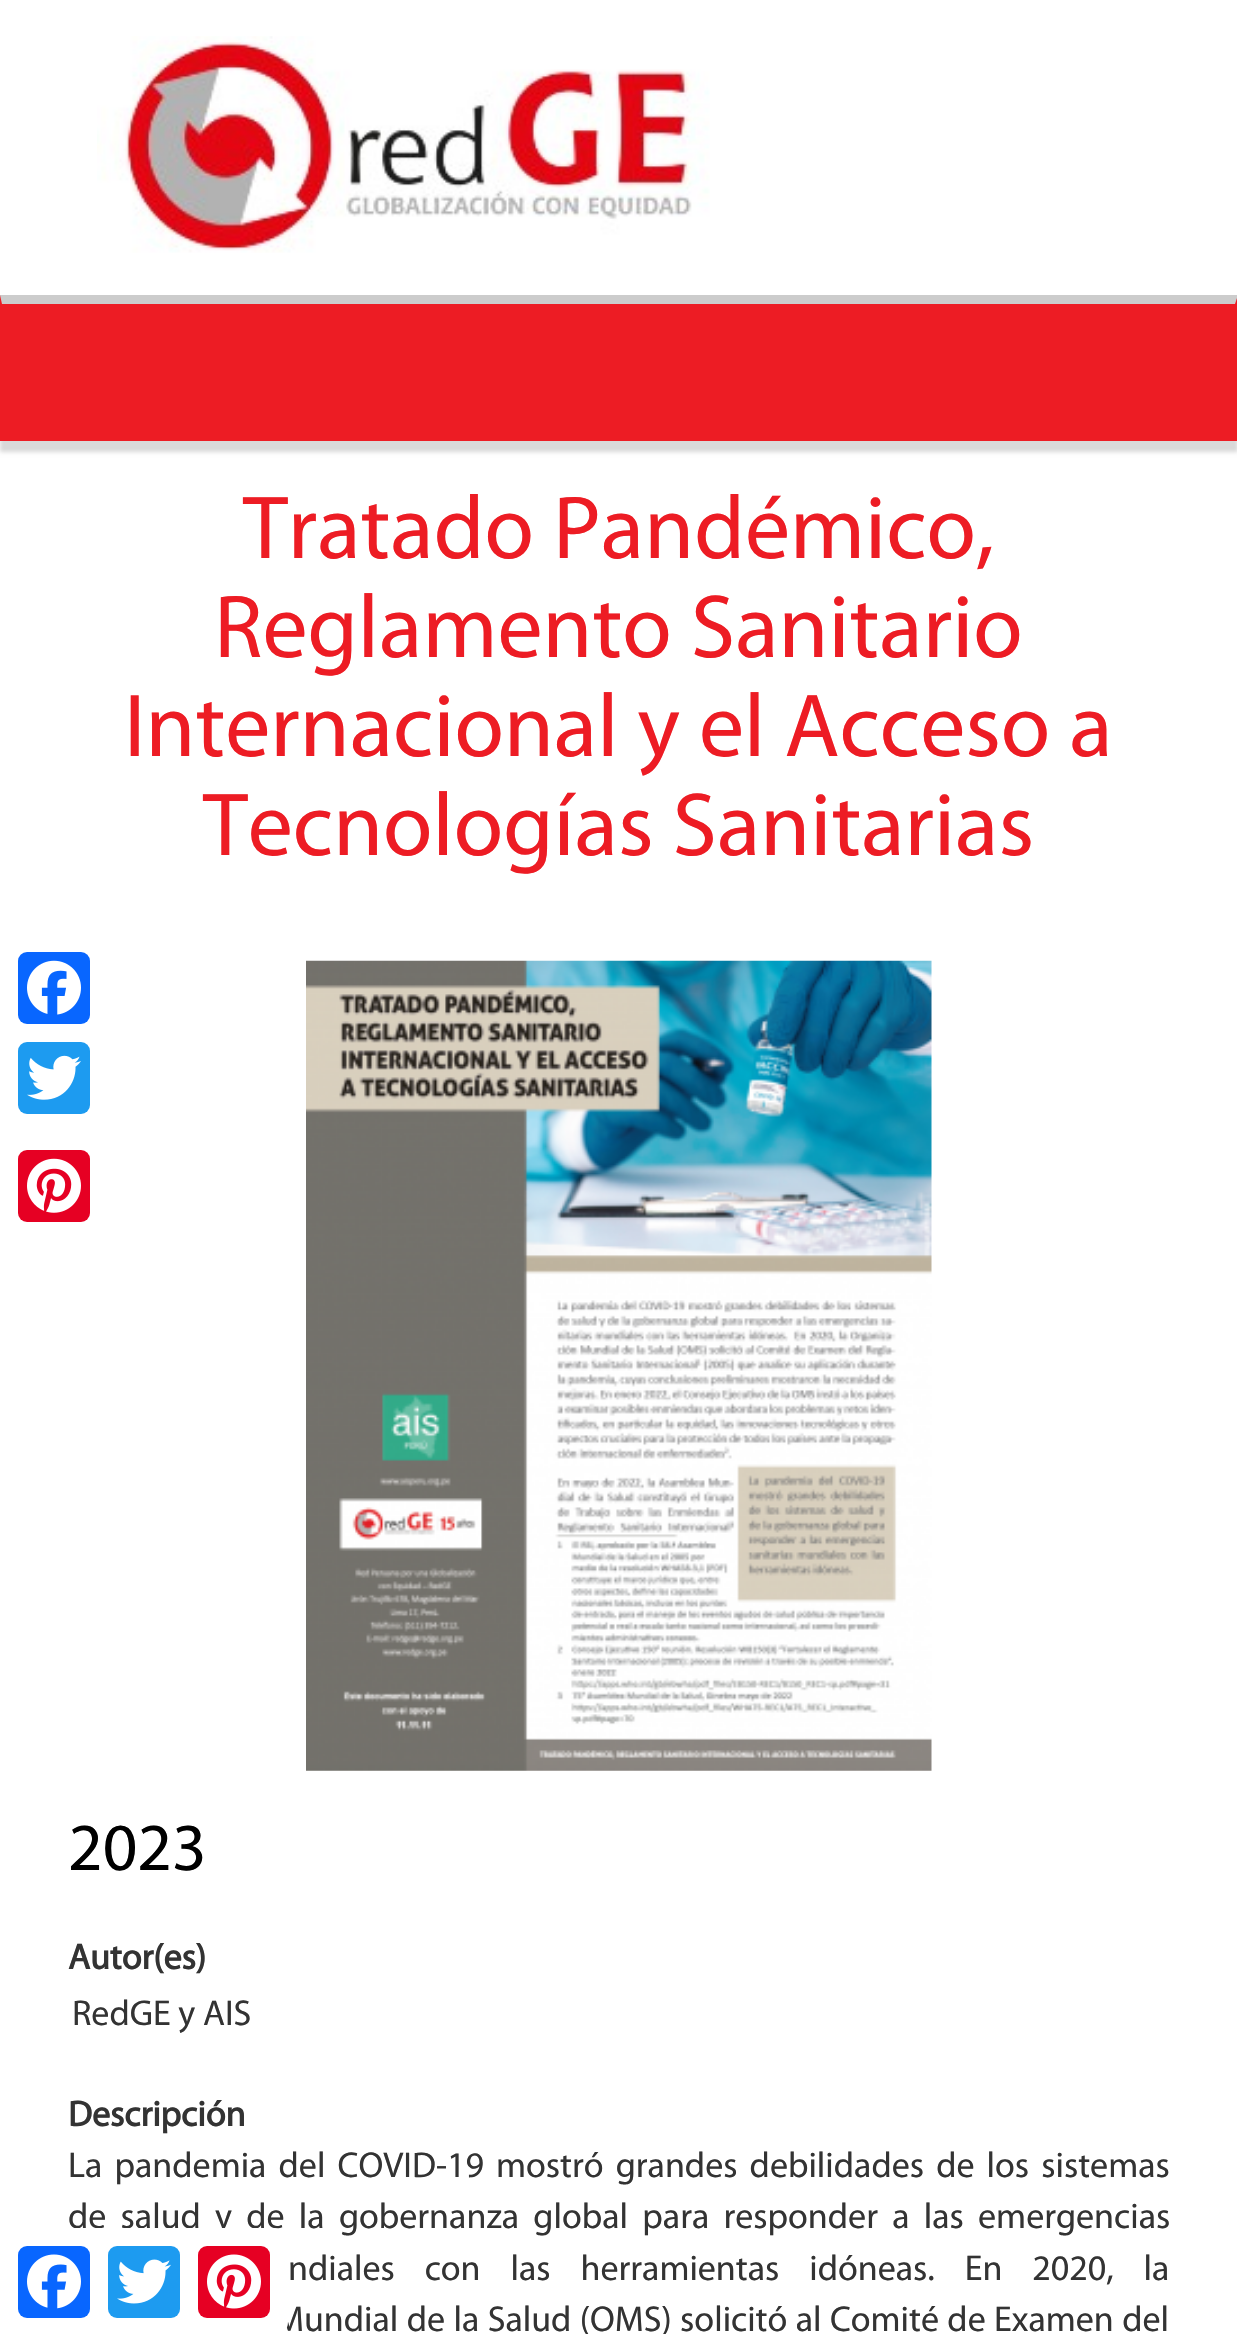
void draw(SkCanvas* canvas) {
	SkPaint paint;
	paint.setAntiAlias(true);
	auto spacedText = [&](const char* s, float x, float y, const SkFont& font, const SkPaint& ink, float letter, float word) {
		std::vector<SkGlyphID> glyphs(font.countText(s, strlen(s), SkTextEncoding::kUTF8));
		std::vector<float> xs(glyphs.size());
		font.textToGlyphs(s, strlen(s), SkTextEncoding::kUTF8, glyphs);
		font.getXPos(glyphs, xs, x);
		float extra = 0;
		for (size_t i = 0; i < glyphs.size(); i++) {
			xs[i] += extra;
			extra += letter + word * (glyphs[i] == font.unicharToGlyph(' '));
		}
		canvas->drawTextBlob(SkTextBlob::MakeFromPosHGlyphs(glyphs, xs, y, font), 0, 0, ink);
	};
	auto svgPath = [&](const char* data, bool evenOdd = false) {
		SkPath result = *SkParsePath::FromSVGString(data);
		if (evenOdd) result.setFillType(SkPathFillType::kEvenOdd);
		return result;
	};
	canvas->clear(0xffffffff);
	canvas->drawImageRect(SkImages::DeferredFromEncodedData(SkData::MakeFromFileName("img1.png")), SkRect::MakeXYWH(97, 36, 613, 217), SkSamplingOptions());
	paint.setColor(0x26000000);
	paint.setMaskFilter(SkMaskFilter::MakeBlur(kNormal_SkBlurStyle, 2));
	canvas->drawRect(SkRect::MakeXYWH(0, 306, 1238, 146), paint);
	paint.setMaskFilter(nullptr);
	paint.setColor(0xffed1c24);
	canvas->drawRect(SkRect::MakeXYWH(0, 295, 1237, 146), paint);
	paint.setColor(0xffcccccc);
	canvas->drawPath(svgPath("M0 295H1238L1235 304H2Z"), paint);
	paint.setColor(0xff0866ff);
	canvas->drawRoundRect(SkRect::MakeXYWH(18, 952, 72, 72), 9, 9, paint);
	canvas->drawImageRect(SkImages::DeferredFromEncodedData(SkData::MakeFromFileName("img2.png")), SkRect::MakeXYWH(27, 960, 54, 55), SkSamplingOptions());
	paint.setColor(0xff1d9bf0);
	canvas->drawRoundRect(SkRect::MakeXYWH(18, 1042, 72, 72), 9, 9, paint);
	canvas->drawImageRect(SkImages::DeferredFromEncodedData(SkData::MakeFromFileName("img3.png")), SkRect::MakeXYWH(27, 1055, 54, 45), SkSamplingOptions());
	paint.setColor(0xffe60023);
	canvas->drawRoundRect(SkRect::MakeXYWH(18, 1150, 72, 72), 9, 9, paint);
	canvas->drawImageRect(SkImages::DeferredFromEncodedData(SkData::MakeFromFileName("img4.png")), SkRect::MakeXYWH(27, 1158, 54, 55), SkSamplingOptions());
	SkFont f1(fontMgr->matchFamilyStyle("Myriad", SkFontStyle::Normal()), 90);
	f1.setSubpixel(true);
	paint.setColor(0xffed1c24);
	canvas->drawString("Tratado Pandémico,", 243, 558, f1, paint);
	canvas->drawString("Reglamento Sanitario", 214, 657, f1, paint);
	canvas->drawString("Internacional y el Acceso a", 124, 756, f1, paint);
	canvas->drawString("Tecnologías Sanitarias", 203, 855, f1, paint);
	canvas->drawImageRect(SkImages::DeferredFromEncodedData(SkData::MakeFromFileName("img5.png")), SkRect::MakeXYWH(306, 960, 626, 811), SkSamplingOptions());
	SkFont f2(fontMgr->matchFamilyStyle("Myriad", SkFontStyle::Normal()), 67.5);
	f2.setSubpixel(true);
	paint.setColor(0xff000000);
	canvas->drawString("2023", 68, 1870, f2, paint);
	SkFont f3(fontMgr->matchFamilyStyle("Myriad", SkFontStyle::Bold()), 36);
	f3.setSubpixel(true);
	paint.setColor(0xff333333);
	canvas->drawString("Autor(es)", 68, 1969, f3, paint);
	SkFont f4(fontMgr->matchFamilyStyle("Myriad", SkFontStyle::Normal()), 36);
	f4.setSubpixel(true);
	canvas->drawString("RedGE y AIS", 72, 2025, f4, paint);
	canvas->drawString("Descripción", 68, 2126, f3, paint);
	spacedText("La pandemia del COVID-19 mostró grandes debilidades de los sistemas", 68, 2177, f4, paint, 0, 4.5);
	spacedText("de salud y de la gobernanza global para responder a las emergencias", 68, 2228, f4, paint, 0, 6.6);
	spacedText("ndiales con las herramientas idóneas. En 2020, la", 288, 2280, f4, paint, 0, 22.25);
	spacedText("Mundial de la Salud (OMS) solicitó al Comité de Examen del", 275, 2331, f4, paint, 0, 0.75);
	paint.setColor(0xffffffff);
	canvas->drawRoundRect(SkRect::MakeXYWH(0, 2228, 288, 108), 14, 14, paint);
	paint.setColor(0xff0866ff);
	canvas->drawRoundRect(SkRect::MakeXYWH(18, 2246, 72, 72), 9, 9, paint);
	canvas->drawImageRect(SkImages::DeferredFromEncodedData(SkData::MakeFromFileName("img6.png")), SkRect::MakeXYWH(27, 2254, 54, 55), SkSamplingOptions());
	paint.setColor(0xff1d9bf0);
	canvas->drawRoundRect(SkRect::MakeXYWH(108, 2246, 72, 72), 9, 9, paint);
	canvas->drawImageRect(SkImages::DeferredFromEncodedData(SkData::MakeFromFileName("img7.png")), SkRect::MakeXYWH(117, 2259, 54, 45), SkSamplingOptions());
	paint.setColor(0xffe60023);
	canvas->drawRoundRect(SkRect::MakeXYWH(198, 2246, 72, 72), 9, 9, paint);
	canvas->drawImageRect(SkImages::DeferredFromEncodedData(SkData::MakeFromFileName("img8.png")), SkRect::MakeXYWH(207, 2254, 54, 55), SkSamplingOptions());
}
